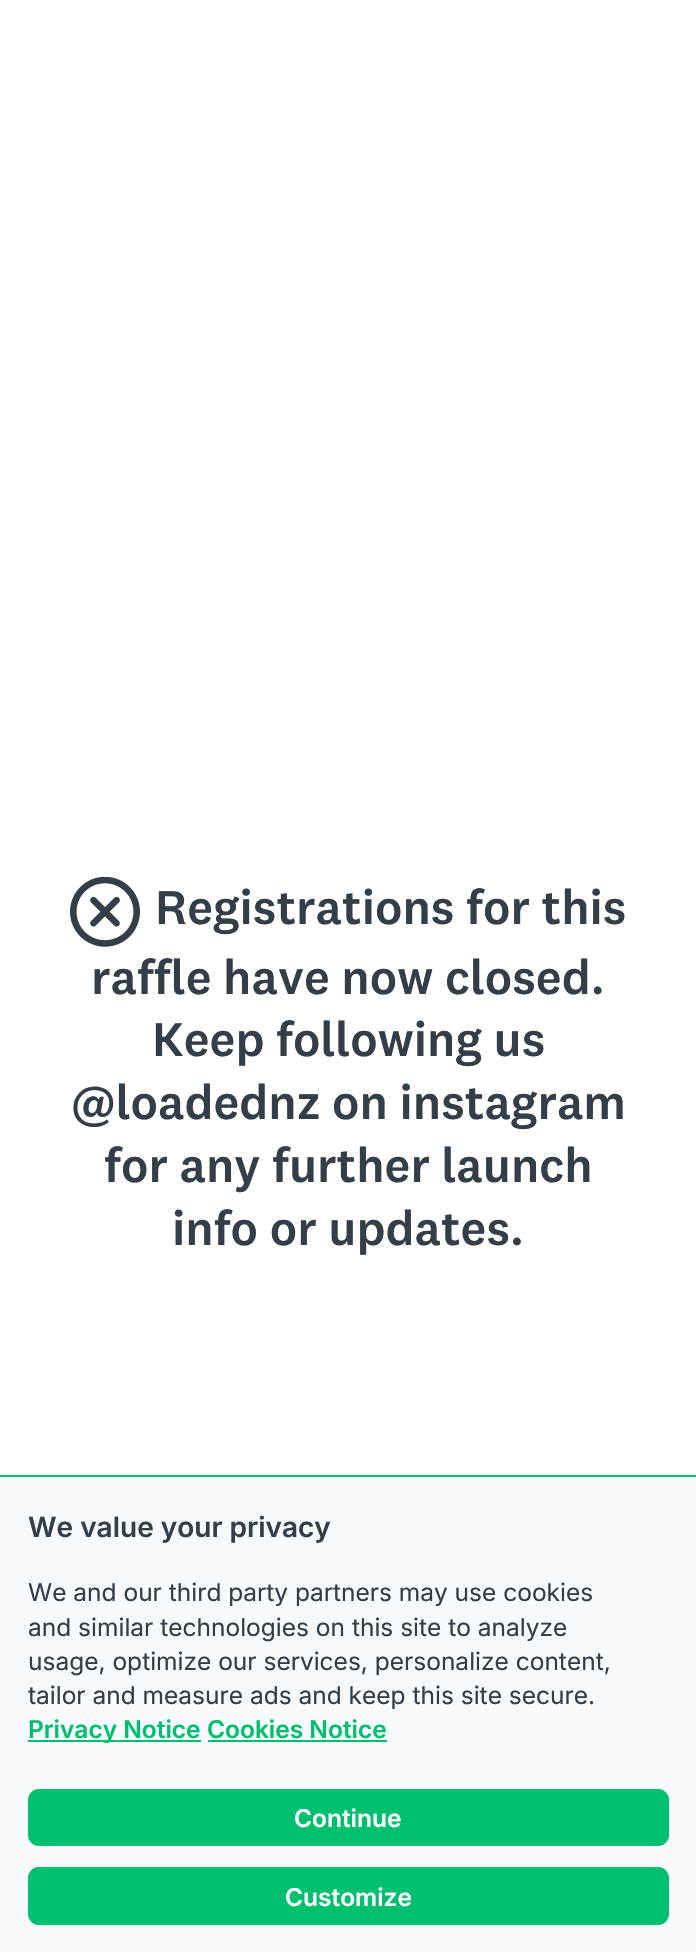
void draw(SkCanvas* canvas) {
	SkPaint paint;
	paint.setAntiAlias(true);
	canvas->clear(0xffffffff);
	canvas->drawImageRect(SkImages::DeferredFromEncodedData(SkData::MakeFromFileName("img1.png")), SkRect::MakeXYWH(70, 877, 70, 70), SkSamplingOptions());
	SkFont f1(fontMgr->matchFamilyStyle("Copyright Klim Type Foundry", SkFontStyle(500, SkFontStyle::kNormal_Width, SkFontStyle::kUpright_Slant)), 49);
	f1.setSubpixel(true);
	paint.setColor(0xff333e48);
	canvas->drawString("Registrations for this", 155, 924, f1, paint);
	canvas->drawString("raffle have now closed.", 91, 994, f1, paint);
	canvas->drawString("Keep following us", 152, 1056, f1, paint);
	canvas->drawString("@loadednz on instagram", 71, 1119, f1, paint);
	canvas->drawString("for any further launch", 104, 1182, f1, paint);
	canvas->drawString("info or updates.", 172, 1245, f1, paint);
	paint.setColor(0xfff7fafc);
	canvas->drawRect(SkRect::MakeXYWH(0, 1477, 696, 475), paint);
	paint.setColor(0xff00bf6f);
	canvas->drawRect(SkRect::MakeXYWH(0, 1475, 696, 2), paint);
	SkFont f2(fontMgr->matchFamilyStyle("Inter", SkFontStyle(600, SkFontStyle::kNormal_Width, SkFontStyle::kUpright_Slant)), 28);
	f2.setSubpixel(true);
	paint.setColor(0xff333e48);
	canvas->drawString("We value your privacy", 28, 1537, f2, paint);
	SkFont f3(fontMgr->matchFamilyStyle("Inter", SkFontStyle::Normal()), 24.5);
	f3.setSubpixel(true);
	canvas->drawString("We and our third party partners may use cookies", 28, 1601, f3, paint);
	canvas->drawString("and similar technologies on this site to analyze", 28, 1636, f3, paint);
	canvas->drawString("usage, optimize our services, personalize content,", 28, 1670, f3, paint);
	canvas->drawString("tailor and measure ads and keep this site secure.", 28, 1704, f3, paint);
	paint.setColor(0xff00bf6f);
	canvas->drawRect(SkRect::MakeXYWH(28, 1740, 173, 2), paint);
	SkFont f4(fontMgr->matchFamilyStyle("Inter", SkFontStyle(600, SkFontStyle::kNormal_Width, SkFontStyle::kUpright_Slant)), 24.5);
	f4.setSubpixel(true);
	canvas->drawString("Privacy Notice", 28, 1738, f4, paint);
	canvas->drawString("Cookies Notice", 207, 1738, f4, paint);
	canvas->drawRect(SkRect::MakeXYWH(208, 1740, 179, 2), paint);
	canvas->drawRoundRect(SkRect::MakeXYWH(28, 1789, 641, 57), 11, 11, paint);
	paint.setColor(0xffffffff);
	canvas->drawString("Continue", 294, 1827, f4, paint);
	paint.setColor(0xff00bf6f);
	canvas->drawRoundRect(SkRect::MakeXYWH(28, 1867, 641, 58), 11, 11, paint);
	paint.setColor(0xffffffff);
	canvas->drawString("Customize", 285, 1906, f4, paint);
}
